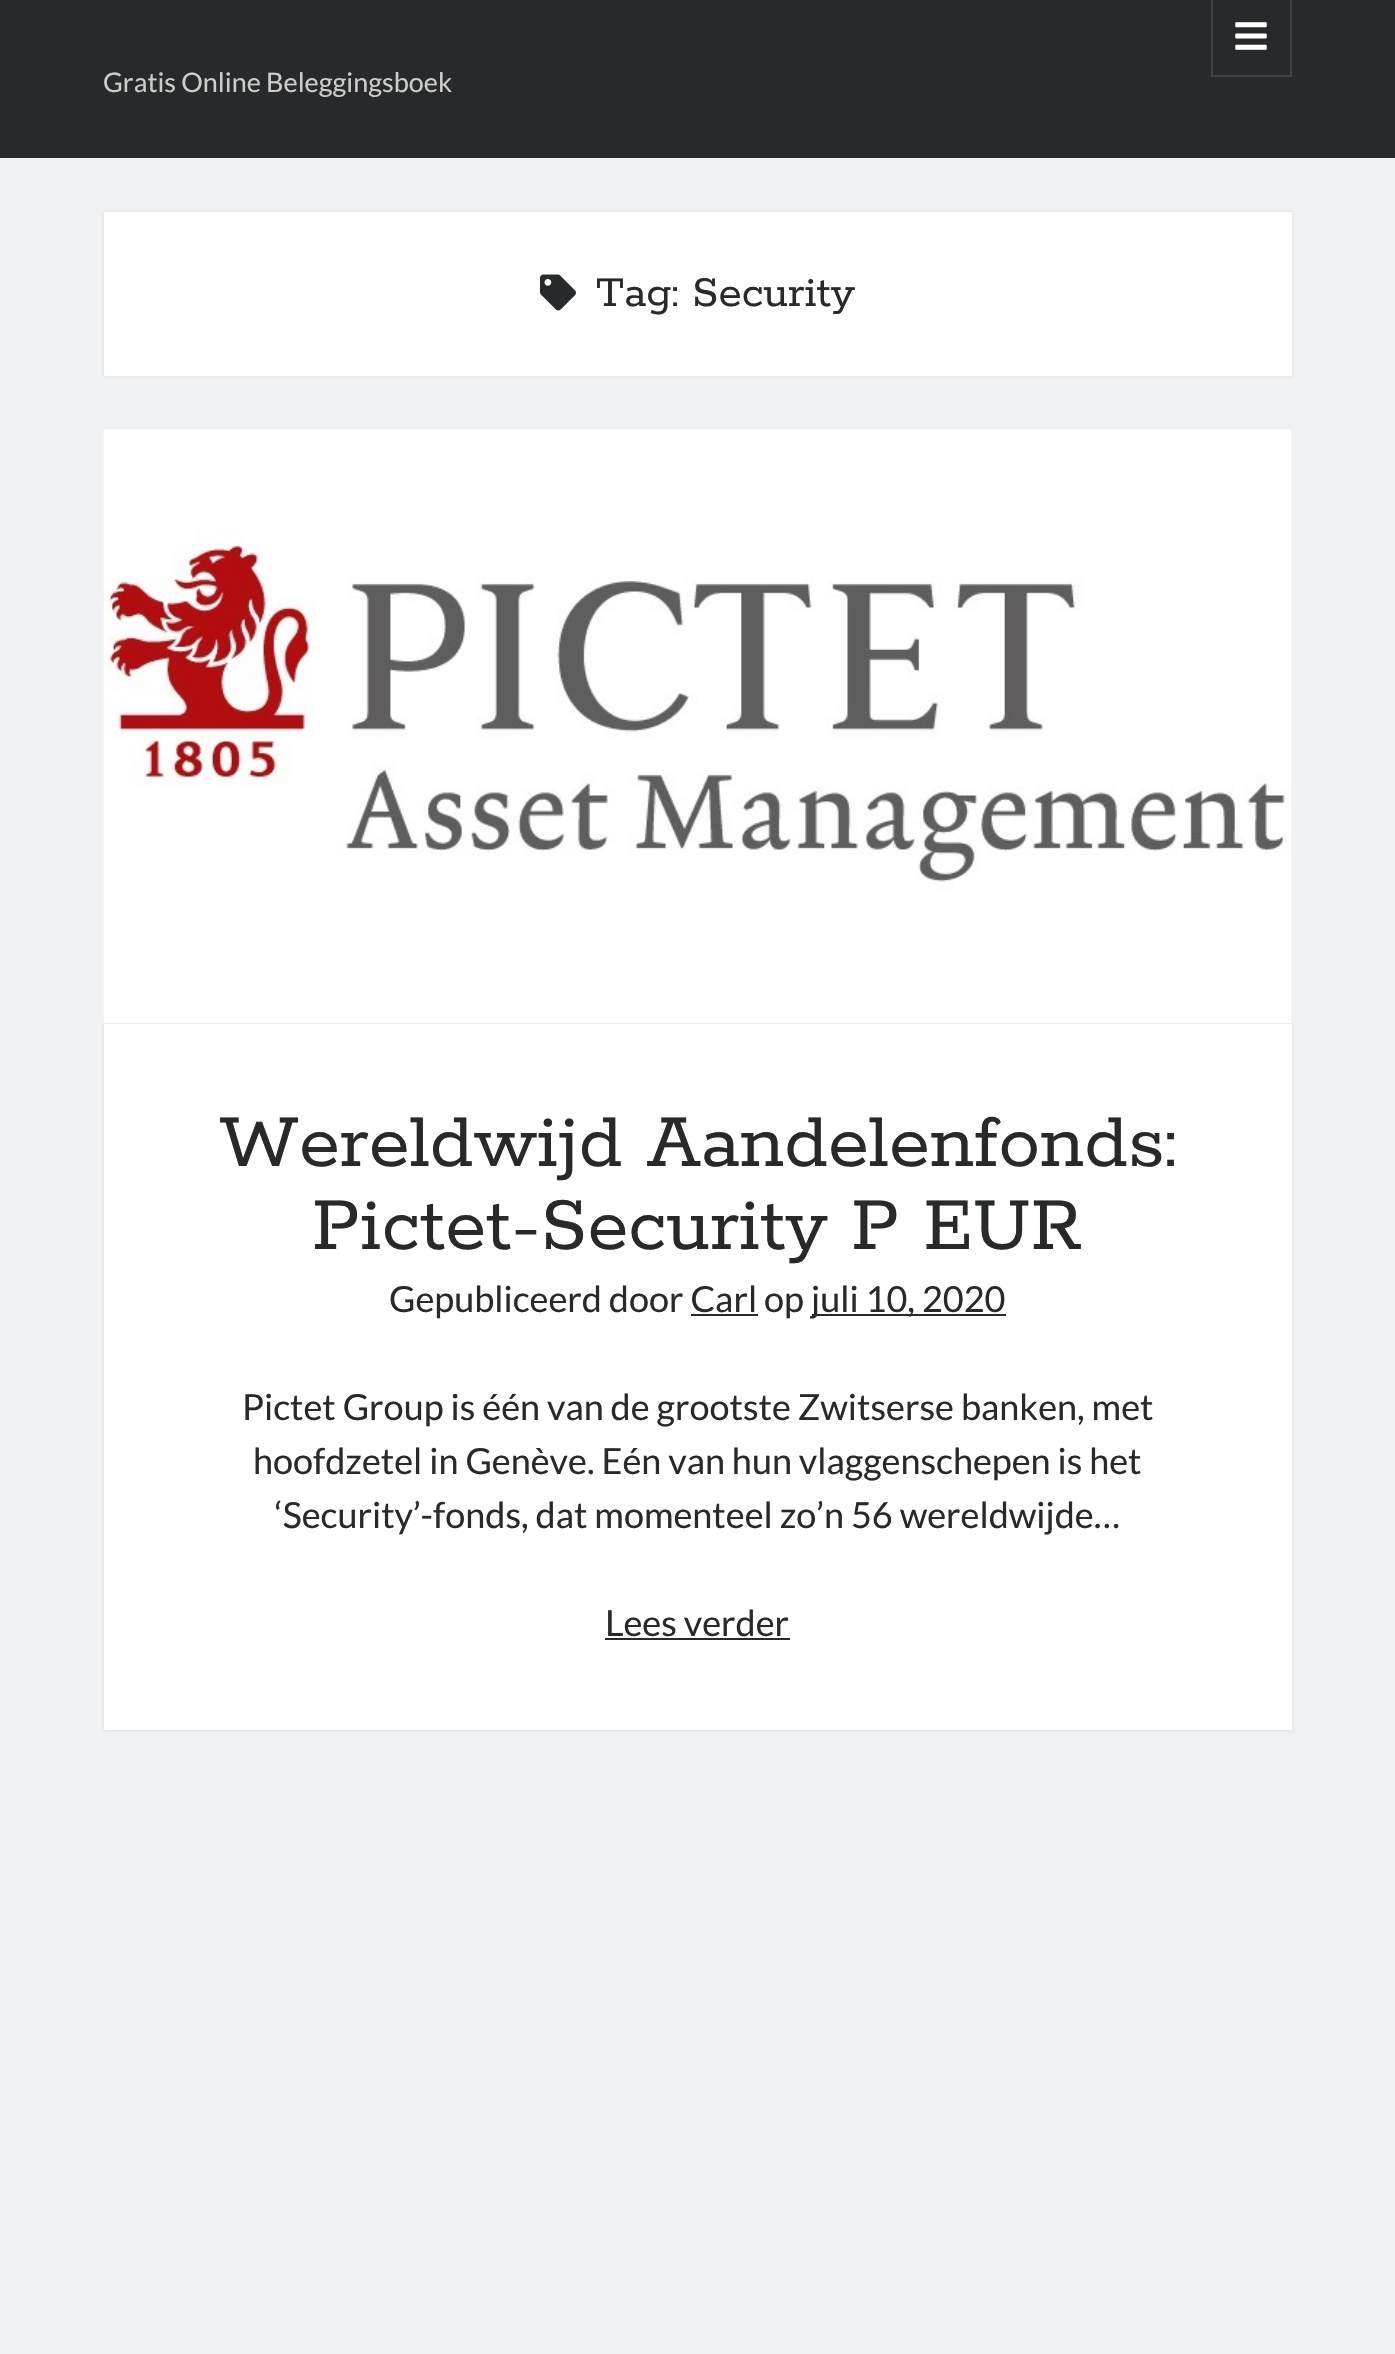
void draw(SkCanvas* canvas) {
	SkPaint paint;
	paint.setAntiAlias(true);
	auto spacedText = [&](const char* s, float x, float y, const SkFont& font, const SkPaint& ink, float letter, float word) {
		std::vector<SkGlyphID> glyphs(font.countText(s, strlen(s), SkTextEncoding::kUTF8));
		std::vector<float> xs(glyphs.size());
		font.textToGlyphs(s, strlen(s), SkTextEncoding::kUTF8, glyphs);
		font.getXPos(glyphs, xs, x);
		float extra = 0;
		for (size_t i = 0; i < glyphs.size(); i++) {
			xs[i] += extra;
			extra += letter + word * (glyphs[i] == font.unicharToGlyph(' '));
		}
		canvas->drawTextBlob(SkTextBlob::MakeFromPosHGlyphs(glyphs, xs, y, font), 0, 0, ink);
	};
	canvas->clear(0xff27292b);
	paint.setStroke(true);
	paint.setStrokeWidth(2);
	paint.setColor(0xff3e4145);
	canvas->drawRect(SkRect::MakeXYWH(1212, -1, 79, 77), paint);
	canvas->drawImageRect(SkImages::DeferredFromEncodedData(SkData::MakeFromFileName("img1.png")), SkRect::MakeXYWH(1235, 22, 32, 28), SkSamplingOptions());
	SkFont f1(fontMgr->matchFamilyStyle("Lato", SkFontStyle::Normal()), 27);
	f1.setSubpixel(true);
	paint.setStroke(false);
	paint.setColor(0xffcccccc);
	canvas->drawString("Gratis Online Beleggingsboek", 103, 92, f1, paint);
	paint.setColor(0xfff0f1f2);
	canvas->drawRect(SkRect::MakeXYWH(0, 158, 1395, 2196), paint);
	paint.setColor(0x1a272b2f);
	paint.setMaskFilter(SkMaskFilter::MakeBlur(kNormal_SkBlurStyle, 2));
	canvas->drawRect(SkRect::MakeXYWH(104, 212, 1188, 164), paint);
	paint.setMaskFilter(nullptr);
	paint.setColor(0xffffffff);
	canvas->drawRect(SkRect::MakeXYWH(104, 212, 1188, 164), paint);
	canvas->drawImageRect(SkImages::DeferredFromEncodedData(SkData::MakeFromFileName("img2.png")), SkRect::MakeXYWH(540, 274, 36, 37), SkSamplingOptions());
	SkFont f2(fontMgr->matchFamilyStyle("Rokkitt", SkFontStyle::Normal()), 47.25);
	f2.setSubpixel(true);
	paint.setColor(0xff27292b);
	canvas->drawString("Tag: Security", 596, 306, f2, paint);
	paint.setColor(0x1a272b2f);
	paint.setMaskFilter(SkMaskFilter::MakeBlur(kNormal_SkBlurStyle, 2));
	canvas->drawRect(SkRect::MakeXYWH(104, 1024, 1188, 706), paint);
	paint.setMaskFilter(nullptr);
	canvas->drawImageRect(SkImages::DeferredFromEncodedData(SkData::MakeFromFileName("img3.png")), SkRect::MakeXYWH(103, 429, 1189, 594), SkSamplingOptions());
	paint.setColor(0xffffffff);
	canvas->drawRect(SkRect::MakeXYWH(104, 1024, 1188, 706), paint);
	SkFont f3(fontMgr->matchFamilyStyle("Rokkitt", SkFontStyle::Normal()), 83.25);
	f3.setSubpixel(true);
	paint.setColor(0xff27292b);
	spacedText("Wereldwijd Aandelenfonds:", 219, 1166, f3, paint, 0, 1);
	canvas->drawString("Pictet-Security P EUR", 312, 1249, f3, paint);
	SkFont f4(fontMgr->matchFamilyStyle("Lato", SkFontStyle::Normal()), 36);
	f4.setSubpixel(true);
	canvas->drawString("Gepubliceerd door Carl op", 389, 1312, f4, paint);
	canvas->drawRect(SkRect::MakeXYWH(691, 1314, 67, 2), paint);
	canvas->drawRect(SkRect::MakeXYWH(812, 1314, 194, 2), paint);
	canvas->drawString("juli 10, 2020", 811, 1312, f4, paint);
	canvas->drawString("Pictet Group is één van de grootste Zwitserse banken, met", 242, 1420, f4, paint);
	canvas->drawString("hoofdzetel in Genève. Eén van hun vlaggenschepen is het", 253, 1474, f4, paint);
	canvas->drawString("‘Security’-fonds, dat momenteel zo’n 56 wereldwijde…", 275, 1528, f4, paint);
	canvas->drawString("Lees verder", 605, 1636, f4, paint);
	canvas->drawRect(SkRect::MakeXYWH(605, 1638, 185, 2), paint);
}
